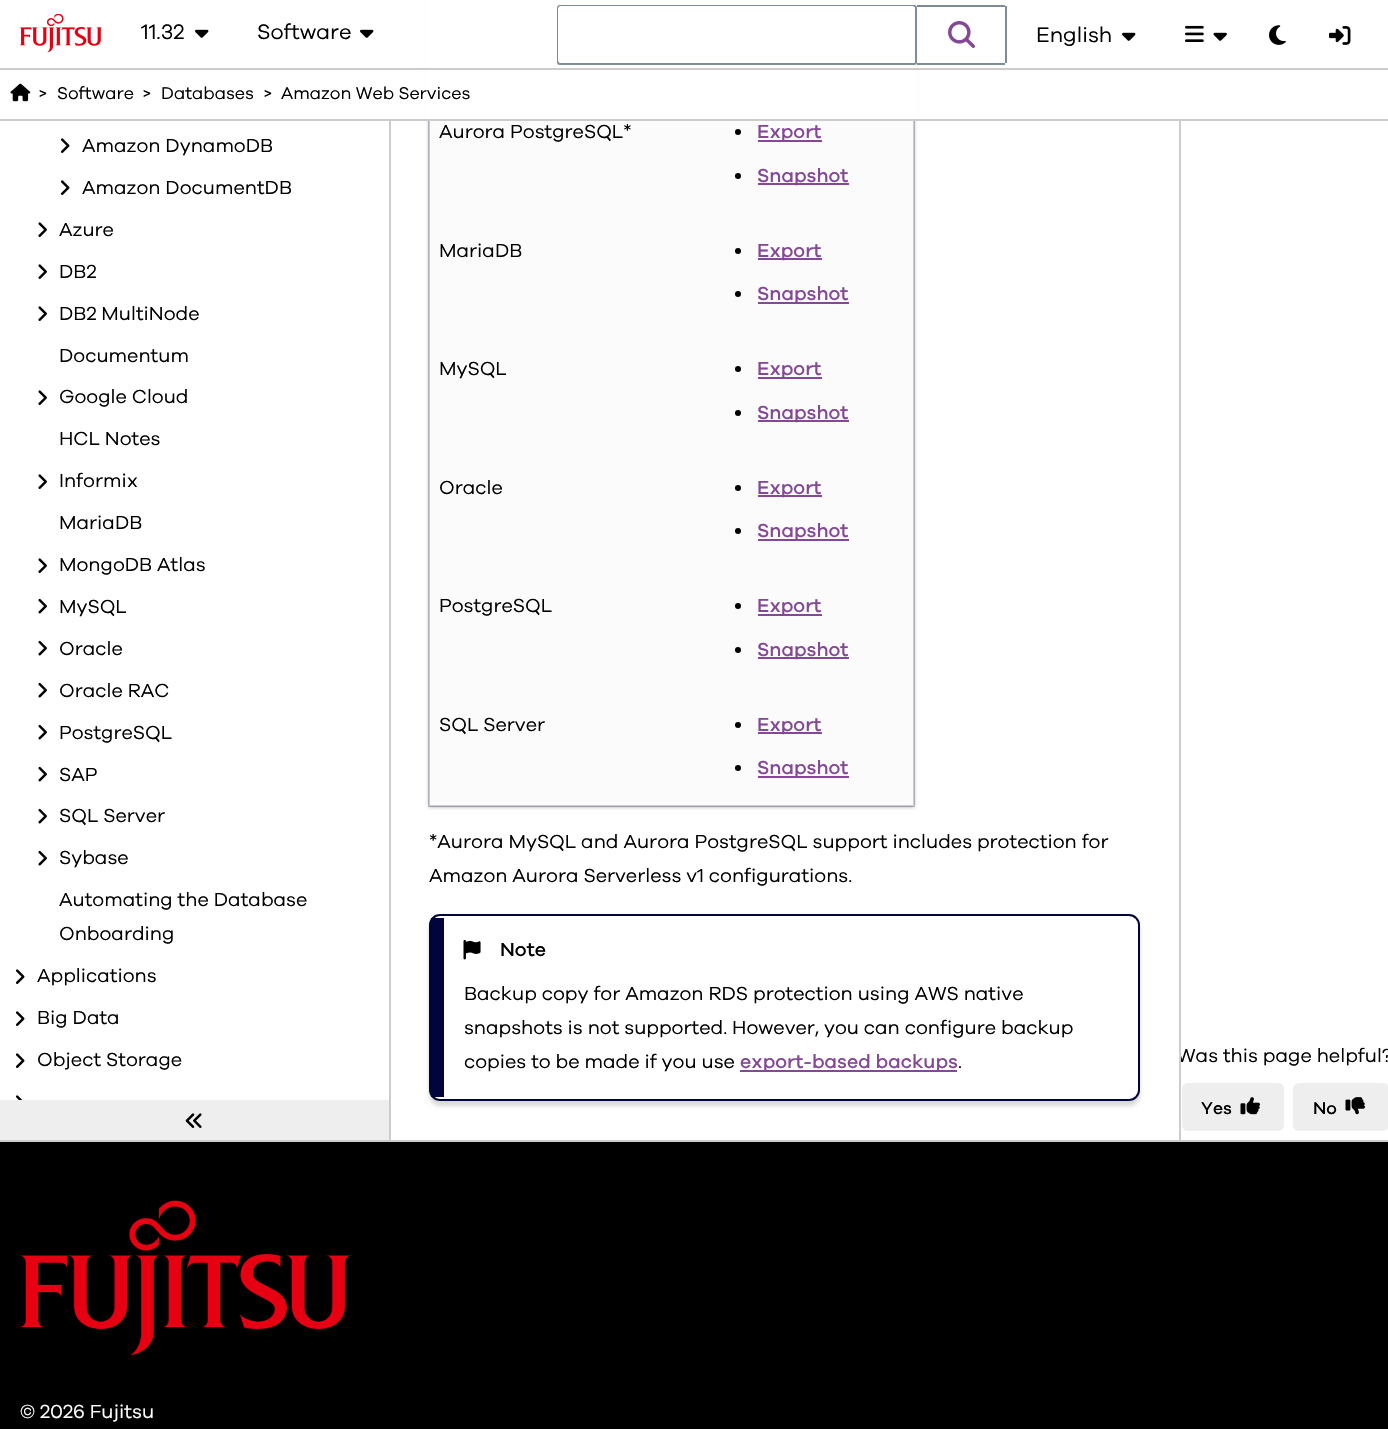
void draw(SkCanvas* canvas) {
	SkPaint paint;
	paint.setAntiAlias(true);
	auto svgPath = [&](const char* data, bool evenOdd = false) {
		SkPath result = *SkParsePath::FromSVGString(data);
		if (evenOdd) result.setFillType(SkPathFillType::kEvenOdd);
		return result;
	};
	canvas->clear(0xffffffff);
	canvas->save();
	canvas->clipPath(svgPath("M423 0H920V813H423ZM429-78H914V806H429Z", true), true);
	paint.setColor(0x3d000000);
	paint.setMaskFilter(SkMaskFilter::MakeBlur(kNormal_SkBlurStyle, 1.5));
	canvas->drawRect(SkRect::MakeXYWH(429, -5, 485, 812), paint);
	paint.setMaskFilter(nullptr);
	canvas->restore();
	canvas->save();
	canvas->clipPath(svgPath("M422 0H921V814H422ZM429-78H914V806H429Z", true), true);
	paint.setColor(0x1f000000);
	paint.setMaskFilter(SkMaskFilter::MakeBlur(kNormal_SkBlurStyle, 2));
	canvas->drawRect(SkRect::MakeXYWH(429, -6, 485, 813), paint);
	paint.setMaskFilter(nullptr);
	canvas->restore();
	paint.setColor(0x33eaeaea);
	canvas->drawRect(SkRect::MakeXYWH(429, 121, 485, 685), paint);
	paint.setColor(0xff000000);
	canvas->drawCircle(738, 132, 3, paint);
	paint.setColor(0xff844896);
	canvas->drawRect(SkRect::MakeXYWH(758, 140, 64, 2), paint);
	paint.setColor(0xff000000);
	canvas->drawCircle(738, 176, 3, paint);
	paint.setColor(0xff844896);
	canvas->drawRect(SkRect::MakeXYWH(758, 183, 91, 2), paint);
	paint.setColor(0xff000000);
	canvas->drawCircle(738, 251, 3, paint);
	paint.setColor(0xff844896);
	canvas->drawRect(SkRect::MakeXYWH(758, 258, 64, 2), paint);
	paint.setColor(0xff000000);
	canvas->drawCircle(738, 294, 3, paint);
	paint.setColor(0xff844896);
	canvas->drawRect(SkRect::MakeXYWH(758, 302, 91, 2), paint);
	paint.setColor(0xff000000);
	canvas->drawCircle(738, 369, 3, paint);
	paint.setColor(0xff844896);
	canvas->drawRect(SkRect::MakeXYWH(758, 377, 64, 2), paint);
	paint.setColor(0xff000000);
	canvas->drawCircle(738, 413, 3, paint);
	paint.setColor(0xff844896);
	canvas->drawRect(SkRect::MakeXYWH(758, 420, 91, 2), paint);
	paint.setColor(0xff000000);
	canvas->drawCircle(738, 488, 3, paint);
	paint.setColor(0xff844896);
	canvas->drawRect(SkRect::MakeXYWH(758, 495, 64, 2), paint);
	paint.setColor(0xff000000);
	canvas->drawCircle(738, 531, 3, paint);
	paint.setColor(0xff844896);
	canvas->drawRect(SkRect::MakeXYWH(758, 539, 91, 2), paint);
	paint.setColor(0xff000000);
	canvas->drawCircle(738, 606, 3, paint);
	paint.setColor(0xff844896);
	canvas->drawRect(SkRect::MakeXYWH(758, 614, 64, 2), paint);
	paint.setColor(0xff000000);
	canvas->drawCircle(738, 650, 3, paint);
	paint.setColor(0xff844896);
	canvas->drawRect(SkRect::MakeXYWH(758, 657, 91, 2), paint);
	paint.setColor(0xff000000);
	canvas->drawCircle(738, 725, 3, paint);
	paint.setColor(0xff844896);
	canvas->drawRect(SkRect::MakeXYWH(758, 732, 64, 2), paint);
	paint.setColor(0xff000000);
	canvas->drawCircle(738, 768, 3, paint);
	paint.setColor(0xff844896);
	canvas->drawRect(SkRect::MakeXYWH(758, 776, 91, 2), paint);
	paint.setStroke(true);
	paint.setStrokeWidth(2);
	paint.setColor(0x3300053b);
	canvas->drawRect(SkRect::MakeXYWH(429, -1, 485, 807), paint);
	paint.setStroke(false);
	paint.setColor(0xffffffff);
	canvas->drawRect(SkRect::MakeXYWH(426, 0, 491, 68), paint);
	paint.setColor(0xffcccccc);
	canvas->drawRect(SkRect::MakeXYWH(0, 68, 1388, 2), paint);
	canvas->drawImageRect(SkImages::DeferredFromEncodedData(SkData::MakeFromFileName("img1.png")), SkRect::MakeXYWH(20, 14, 82, 39), SkSamplingOptions());
	SkFont f1(fontMgr->matchFamilyStyle("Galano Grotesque", SkFontStyle::Normal()), 21.5);
	f1.setSubpixel(true);
	paint.setColor(0xff000000);
	canvas->drawString("11.32", 141, 39, f1, paint);
	canvas->drawImageRect(SkImages::DeferredFromEncodedData(SkData::MakeFromFileName("img2.png")), SkRect::MakeXYWH(195, 29, 14, 9), SkSamplingOptions());
	canvas->drawString("Software", 257, 39, f1, paint);
	canvas->drawImageRect(SkImages::DeferredFromEncodedData(SkData::MakeFromFileName("img2.png")), SkRect::MakeXYWH(360, 29, 14, 9), SkSamplingOptions());
	paint.setStroke(true);
	paint.setColor(0xff7e8c9a);
	canvas->drawRoundRect(SkRect::MakeXYWH(558, 6, 358, 58), 2, 2, paint);
	paint.setStroke(false);
	paint.setColor(0xffffffff);
	canvas->drawRoundRect(SkRect::MakeXYWH(558, 6, 357, 57), 3, 3, paint);
	paint.setColor(0xff7e8c9a);
	canvas->drawRect(SkRect::MakeXYWH(917, 5, 88, 2), paint);
	canvas->drawRect(SkRect::MakeXYWH(1005, 6, 2, 57), paint);
	canvas->drawRect(SkRect::MakeXYWH(917, 63, 88, 2), paint);
	canvas->drawImageRect(SkImages::DeferredFromEncodedData(SkData::MakeFromFileName("img3.png")), SkRect::MakeXYWH(948, 21, 27, 27), SkSamplingOptions());
	paint.setColor(0xff000000);
	canvas->drawString("English", 1036, 42, f1, paint);
	canvas->drawImageRect(SkImages::DeferredFromEncodedData(SkData::MakeFromFileName("img2.png")), SkRect::MakeXYWH(1122, 32, 14, 9), SkSamplingOptions());
	canvas->drawImageRect(SkImages::DeferredFromEncodedData(SkData::MakeFromFileName("img4.png")), SkRect::MakeXYWH(1185, 25, 19, 17), SkSamplingOptions());
	canvas->drawImageRect(SkImages::DeferredFromEncodedData(SkData::MakeFromFileName("img5.png")), SkRect::MakeXYWH(1213, 32, 14, 9), SkSamplingOptions());
	canvas->drawImageRect(SkImages::DeferredFromEncodedData(SkData::MakeFromFileName("img6.png")), SkRect::MakeXYWH(1269, 25, 17, 20), SkSamplingOptions());
	canvas->drawImageRect(SkImages::DeferredFromEncodedData(SkData::MakeFromFileName("img7.png")), SkRect::MakeXYWH(1329, 26, 22, 19), SkSamplingOptions());
	paint.setColor(0xffcccccc);
	canvas->drawRect(SkRect::MakeXYWH(1179, 121, 2, 1019), paint);
	paint.setColor(0xffffffff);
	canvas->drawRect(SkRect::MakeXYWH(426, 70, 491, 49), paint);
	paint.setColor(0xffcccccc);
	canvas->drawRect(SkRect::MakeXYWH(0, 119, 1388, 2), paint);
	canvas->drawImageRect(SkImages::DeferredFromEncodedData(SkData::MakeFromFileName("img8.png")), SkRect::MakeXYWH(10, 83, 21, 19), SkSamplingOptions());
	SkFont f2(fontMgr->matchFamilyStyle("Galano Grotesque", SkFontStyle::Normal()), 17.5);
	f2.setSubpixel(true);
	paint.setColor(0xff000000);
	canvas->drawString(">", 39, 99, f2, paint);
	canvas->drawString("Software", 57, 99, f2, paint);
	canvas->drawString(">", 143, 99, f2, paint);
	canvas->drawString("Databases", 161, 99, f2, paint);
	canvas->drawString(">", 264, 99, f2, paint);
	canvas->drawString("Amazon Web Services", 281, 99, f2, paint);
	SkFont f3(fontMgr->matchFamilyStyle("Galano Grotesque", SkFontStyle::Normal()), 19.5);
	f3.setSubpixel(true);
	canvas->drawString("Aurora PostgreSQL*", 439, 138, f3, paint);
	SkFont f4(fontMgr->matchFamilyStyle("Galano Grotesque", SkFontStyle(500, SkFontStyle::kNormal_Width, SkFontStyle::kUpright_Slant)), 19.5);
	f4.setSubpixel(true);
	paint.setColor(0xff844896);
	canvas->drawString("Export", 757, 138, f4, paint);
	canvas->drawString("Snapshot", 757, 182, f4, paint);
	paint.setColor(0xff000000);
	canvas->drawString("MariaDB", 439, 257, f3, paint);
	paint.setColor(0xff844896);
	canvas->drawString("Export", 757, 257, f4, paint);
	canvas->drawString("Snapshot", 757, 300, f4, paint);
	paint.setColor(0xff000000);
	canvas->drawString("MySQL", 439, 375, f3, paint);
	paint.setColor(0xff844896);
	canvas->drawString("Export", 757, 375, f4, paint);
	canvas->drawString("Snapshot", 757, 419, f4, paint);
	paint.setColor(0xff000000);
	canvas->drawString("Oracle", 439, 494, f3, paint);
	paint.setColor(0xff844896);
	canvas->drawString("Export", 757, 494, f4, paint);
	canvas->drawString("Snapshot", 757, 537, f4, paint);
	paint.setColor(0xff000000);
	canvas->drawString("PostgreSQL", 439, 612, f3, paint);
	paint.setColor(0xff844896);
	canvas->drawString("Export", 757, 612, f4, paint);
	canvas->drawString("Snapshot", 757, 656, f4, paint);
	paint.setColor(0xff000000);
	canvas->drawString("SQL Server", 439, 731, f3, paint);
	paint.setColor(0xff844896);
	canvas->drawString("Export", 757, 731, f4, paint);
	canvas->drawString("Snapshot", 757, 774, f4, paint);
	paint.setColor(0xff000000);
	canvas->drawString("*Aurora MySQL and Aurora PostgreSQL support includes protection for", 429, 848, f3, paint);
	canvas->drawString("Amazon Aurora Serverless v1 configurations.", 429, 882, f3, paint);
	canvas->save();
	canvas->clipPath(svgPath("M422 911H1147V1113H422ZM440 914H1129C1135 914 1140 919 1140 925V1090C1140 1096 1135 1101 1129 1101H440C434 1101 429 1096 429 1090V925C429 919 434 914 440 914Z", true), true);
	paint.setColor(0x26000000);
	paint.setMaskFilter(SkMaskFilter::MakeBlur(kNormal_SkBlurStyle, 2));
	canvas->drawRoundRect(SkRect::MakeXYWH(429, 918, 711, 188), 11, 11, paint);
	paint.setMaskFilter(nullptr);
	canvas->restore();
	paint.setStroke(true);
	paint.setColor(0xff00053b);
	canvas->drawRoundRect(SkRect::MakeXYWH(430, 915, 709, 185), 10, 10, paint);
	paint.setStroke(false);
	canvas->drawRect(SkRect::MakeXYWH(431, 918, 13, 179), paint);
	canvas->drawImageRect(SkImages::DeferredFromEncodedData(SkData::MakeFromFileName("img9.png")), SkRect::MakeXYWH(463, 939, 18, 21), SkSamplingOptions());
	paint.setColor(0xff000000);
	canvas->drawString("Note", 500, 956, f4, paint);
	canvas->drawString("Backup copy for Amazon RDS protection using AWS native", 464, 1000, f3, paint);
	canvas->drawString("snapshots is not supported. However, you can configure backup", 464, 1034, f3, paint);
	canvas->drawString("copies to be made if you use", 464, 1068, f3, paint);
	paint.setColor(0xff844896);
	canvas->drawRect(SkRect::MakeXYWH(740, 1070, 217, 2), paint);
	canvas->drawString("export-based backups", 740, 1068, f4, paint);
	paint.setColor(0xff000000);
	canvas->drawString(".", 958, 1068, f3, paint);
	canvas->save();
	canvas->clipRect(SkRect::MakeXYWH(1181, 0, 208, 1140));
	canvas->drawString("Was this page helpful?", 1177, 1062, f3, paint);
	canvas->restore();
	paint.setColor(0xffeeeeee);
	canvas->drawRoundRect(SkRect::MakeXYWH(1182, 1083, 102, 48), 6, 6, paint);
	SkFont f5(fontMgr->matchFamilyStyle("Galano Grotesque", SkFontStyle(500, SkFontStyle::kNormal_Width, SkFontStyle::kUpright_Slant)), 17.5);
	f5.setSubpixel(true);
	paint.setColor(0xff000000);
	canvas->drawString("Yes", 1201, 1114, f5, paint);
	canvas->drawImageRect(SkImages::DeferredFromEncodedData(SkData::MakeFromFileName("img10.png")), SkRect::MakeXYWH(1240, 1097, 20, 18), SkSamplingOptions());
	paint.setColor(0xffeeeeee);
	canvas->drawRoundRect(SkRect::MakeXYWH(1293, 1083, 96, 48), 6, 6, paint);
	paint.setColor(0xff000000);
	canvas->drawString("No", 1313, 1114, f5, paint);
	canvas->drawImageRect(SkImages::DeferredFromEncodedData(SkData::MakeFromFileName("img11.png")), SkRect::MakeXYWH(1345, 1097, 20, 18), SkSamplingOptions());
	canvas->drawImageRect(SkImages::DeferredFromEncodedData(SkData::MakeFromFileName("img12.png")), SkRect::MakeXYWH(60, 138, 10, 15), SkSamplingOptions());
	canvas->drawString("Amazon DynamoDB", 82, 152, f3, paint);
	canvas->drawImageRect(SkImages::DeferredFromEncodedData(SkData::MakeFromFileName("img12.png")), SkRect::MakeXYWH(60, 180, 10, 15), SkSamplingOptions());
	canvas->drawString("Amazon DocumentDB", 82, 194, f3, paint);
	canvas->drawImageRect(SkImages::DeferredFromEncodedData(SkData::MakeFromFileName("img13.png")), SkRect::MakeXYWH(38, 222, 9, 15), SkSamplingOptions());
	canvas->drawString("Azure", 59, 236, f3, paint);
	canvas->drawImageRect(SkImages::DeferredFromEncodedData(SkData::MakeFromFileName("img13.png")), SkRect::MakeXYWH(38, 264, 9, 15), SkSamplingOptions());
	canvas->drawString("DB2", 59, 278, f3, paint);
	canvas->drawImageRect(SkImages::DeferredFromEncodedData(SkData::MakeFromFileName("img13.png")), SkRect::MakeXYWH(38, 306, 9, 15), SkSamplingOptions());
	canvas->drawString("DB2 MultiNode", 59, 320, f3, paint);
	canvas->drawString("Documentum", 59, 362, f3, paint);
	canvas->drawImageRect(SkImages::DeferredFromEncodedData(SkData::MakeFromFileName("img13.png")), SkRect::MakeXYWH(38, 390, 9, 15), SkSamplingOptions());
	canvas->drawString("Google Cloud", 59, 403, f3, paint);
	canvas->drawString("HCL Notes", 59, 445, f3, paint);
	canvas->drawImageRect(SkImages::DeferredFromEncodedData(SkData::MakeFromFileName("img13.png")), SkRect::MakeXYWH(38, 474, 9, 15), SkSamplingOptions());
	canvas->drawString("Informix", 59, 487, f3, paint);
	canvas->drawString("MariaDB", 59, 529, f3, paint);
	canvas->drawImageRect(SkImages::DeferredFromEncodedData(SkData::MakeFromFileName("img13.png")), SkRect::MakeXYWH(38, 558, 9, 15), SkSamplingOptions());
	canvas->drawString("MongoDB Atlas", 59, 571, f3, paint);
	canvas->drawImageRect(SkImages::DeferredFromEncodedData(SkData::MakeFromFileName("img14.png")), SkRect::MakeXYWH(38, 598, 9, 16), SkSamplingOptions());
	canvas->drawString("MySQL", 59, 613, f3, paint);
	canvas->drawImageRect(SkImages::DeferredFromEncodedData(SkData::MakeFromFileName("img14.png")), SkRect::MakeXYWH(38, 640, 9, 16), SkSamplingOptions());
	canvas->drawString("Oracle", 59, 655, f3, paint);
	canvas->drawImageRect(SkImages::DeferredFromEncodedData(SkData::MakeFromFileName("img14.png")), SkRect::MakeXYWH(38, 682, 9, 16), SkSamplingOptions());
	canvas->drawString("Oracle RAC", 59, 697, f3, paint);
	canvas->drawImageRect(SkImages::DeferredFromEncodedData(SkData::MakeFromFileName("img14.png")), SkRect::MakeXYWH(38, 724, 9, 16), SkSamplingOptions());
	canvas->drawString("PostgreSQL", 59, 739, f3, paint);
	canvas->drawImageRect(SkImages::DeferredFromEncodedData(SkData::MakeFromFileName("img14.png")), SkRect::MakeXYWH(38, 766, 9, 16), SkSamplingOptions());
	canvas->drawString("SAP", 59, 781, f3, paint);
	canvas->drawImageRect(SkImages::DeferredFromEncodedData(SkData::MakeFromFileName("img14.png")), SkRect::MakeXYWH(38, 808, 9, 16), SkSamplingOptions());
	canvas->drawString("SQL Server", 59, 822, f3, paint);
	canvas->drawImageRect(SkImages::DeferredFromEncodedData(SkData::MakeFromFileName("img14.png")), SkRect::MakeXYWH(38, 850, 9, 16), SkSamplingOptions());
	canvas->drawString("Sybase", 59, 864, f3, paint);
	canvas->drawString("Automating the Database", 59, 906, f3, paint);
	canvas->drawString("Onboarding", 59, 940, f3, paint);
	canvas->drawImageRect(SkImages::DeferredFromEncodedData(SkData::MakeFromFileName("img12.png")), SkRect::MakeXYWH(15, 969, 10, 15), SkSamplingOptions());
	canvas->drawString("Applications", 37, 982, f3, paint);
	canvas->drawImageRect(SkImages::DeferredFromEncodedData(SkData::MakeFromFileName("img12.png")), SkRect::MakeXYWH(15, 1011, 10, 15), SkSamplingOptions());
	canvas->drawString("Big Data", 37, 1024, f3, paint);
	canvas->drawImageRect(SkImages::DeferredFromEncodedData(SkData::MakeFromFileName("img12.png")), SkRect::MakeXYWH(15, 1053, 10, 15), SkSamplingOptions());
	canvas->drawString("Object Storage", 37, 1066, f3, paint);
	canvas->drawImageRect(SkImages::DeferredFromEncodedData(SkData::MakeFromFileName("img15.png")), SkRect::MakeXYWH(15, 1095, 8, 5), SkSamplingOptions());
	paint.setColor(0xffeeeeee);
	canvas->drawRect(SkRect::MakeXYWH(0, 1100, 389, 40), paint);
	canvas->drawImageRect(SkImages::DeferredFromEncodedData(SkData::MakeFromFileName("img16.png")), SkRect::MakeXYWH(185, 1113, 17, 15), SkSamplingOptions());
	paint.setColor(0xffcccccc);
	canvas->drawRect(SkRect::MakeXYWH(389, 121, 2, 1019), paint);
	paint.setColor(0xff000000);
	canvas->drawRect(SkRect::MakeXYWH(0, 1142, 1388, 287), paint);
	paint.setColor(0xffcccccc);
	canvas->drawRect(SkRect::MakeXYWH(0, 1140, 1388, 2), paint);
	canvas->drawImageRect(SkImages::DeferredFromEncodedData(SkData::MakeFromFileName("img17.png")), SkRect::MakeXYWH(20, 1200, 331, 156), SkSamplingOptions());
	paint.setColor(0xffffffff);
	canvas->drawString("© 2026 Fujitsu", 20, 1418, f3, paint);
}
